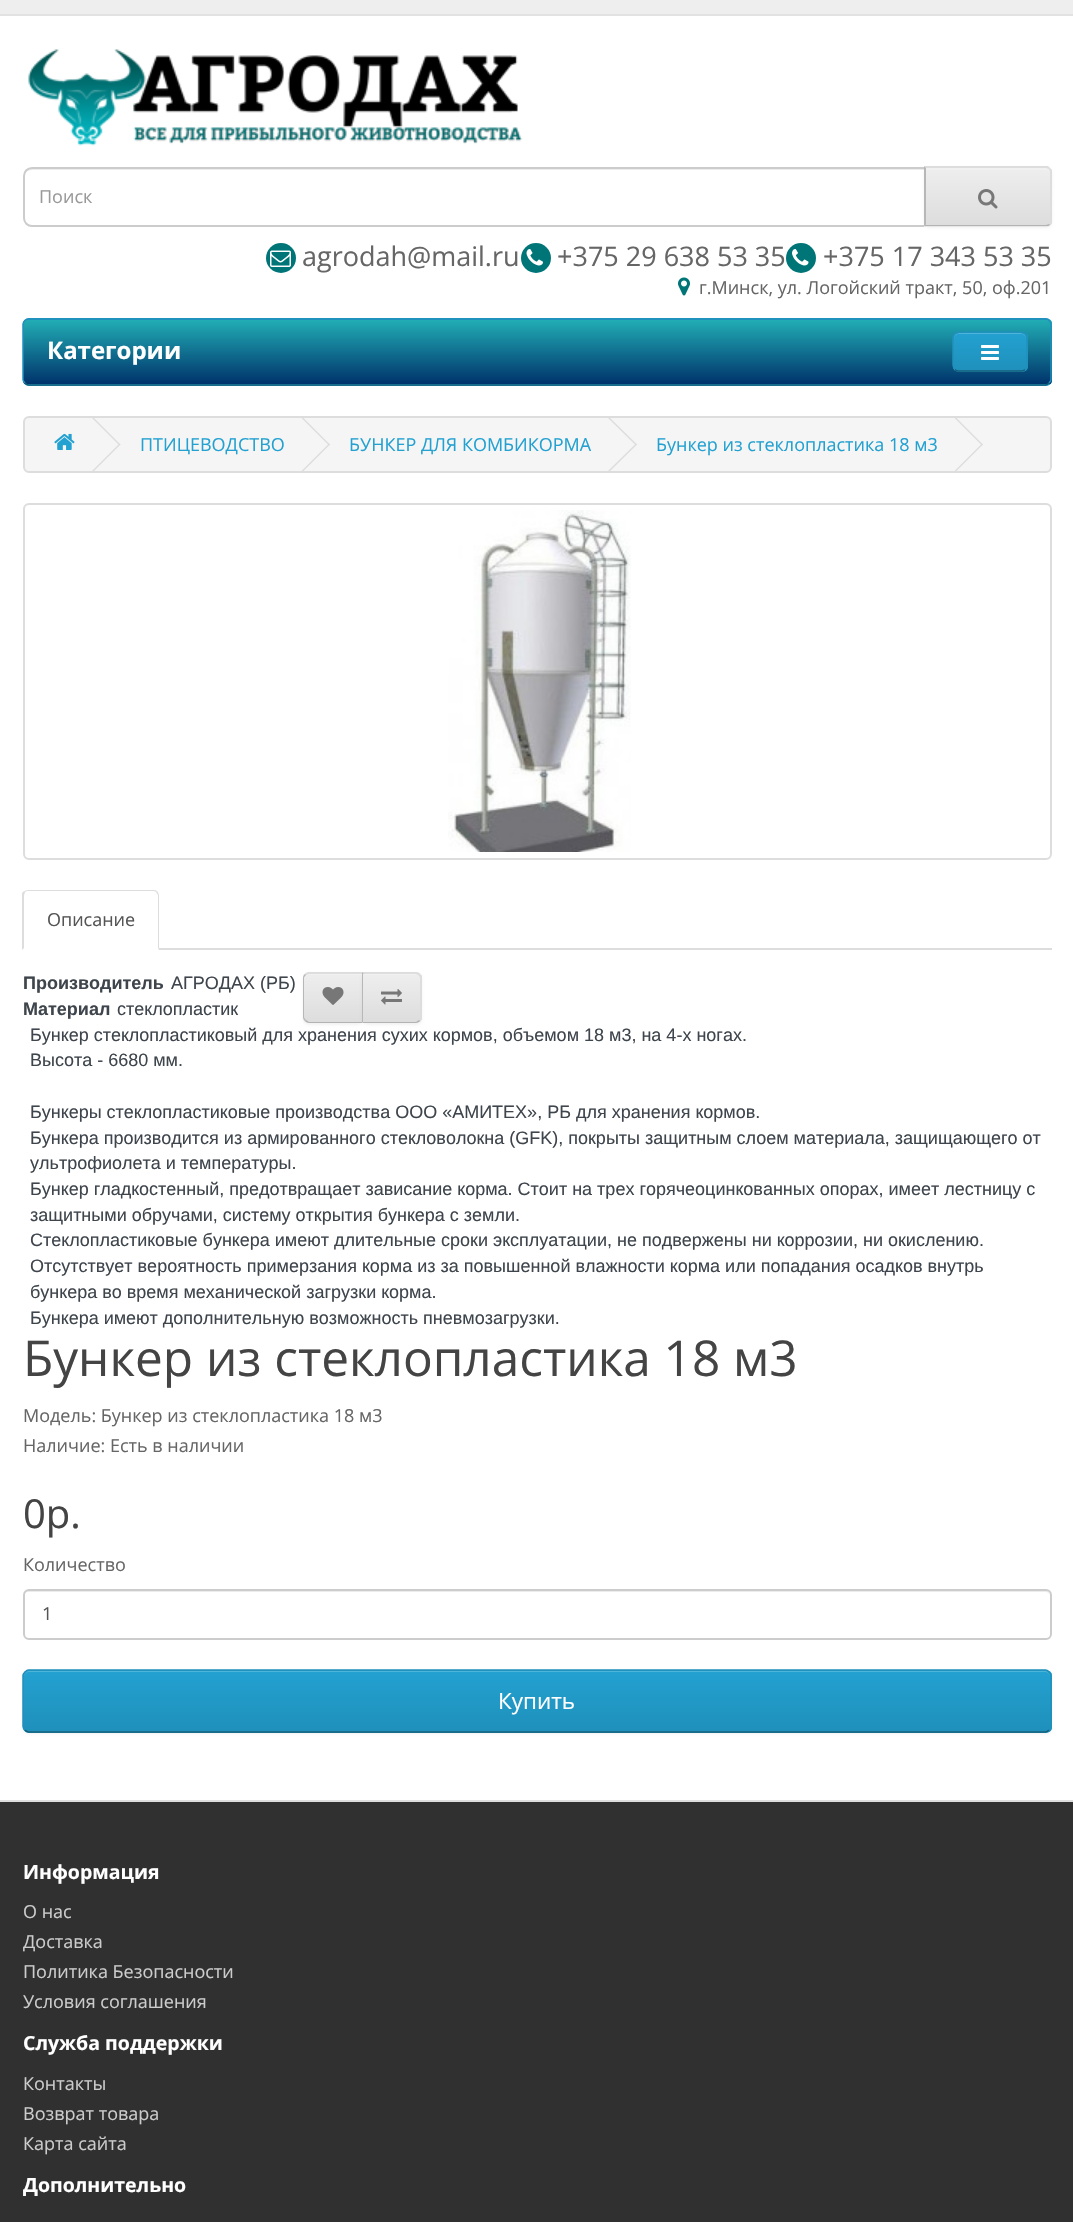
void draw(SkCanvas* canvas) {
	SkPaint paint;
	paint.setAntiAlias(true);
	auto svgPath = [&](const char* data, bool evenOdd = false) {
		SkPath result = *SkParsePath::FromSVGString(data);
		if (evenOdd) result.setFillType(SkPathFillType::kEvenOdd);
		return result;
	};
	canvas->clear(0xffffffff);
	paint.setColor(0xffeeeeee);
	canvas->drawRect(SkRect::MakeXYWH(0, 0, 1073, 14), paint);
	paint.setColor(0xffe2e2e2);
	canvas->drawRect(SkRect::MakeXYWH(0, 14, 1073, 2), paint);
	canvas->drawImageRect(SkImages::DeferredFromEncodedData(SkData::MakeFromFileName("img1.png")), SkRect::MakeXYWH(28, 49, 495, 97), SkSamplingOptions());
	paint.setColor(0xffececec);
	canvas->drawPath(svgPath("M32 170H924V168H32C27 168 24 172 24 177C24 173 27 170 32 170Z"), paint);
	paint.setStroke(true);
	paint.setStrokeWidth(2);
	paint.setColor(0xffcccccc);
	canvas->drawPath(svgPath("M32 168H925V226H32C27.5 226 24 222.5 24 218V176C24 171.5 27.5 168 32 168Z"), paint);
	SkFont f1(fontMgr->matchFamilyStyle("Open Sans", SkFontStyle::Normal()), 18);
	f1.setSubpixel(true);
	paint.setStroke(false);
	paint.setColor(0xff999999);
	canvas->drawString("Поиск", 39, 203, f1, paint);
	paint.setColor(0x0d000000);
	paint.setMaskFilter(SkMaskFilter::MakeBlur(kNormal_SkBlurStyle, 1.5));
	canvas->drawRoundRect(SkRect::MakeXYWH(924, 168, 128, 60), 6, 6, paint);
	paint.setMaskFilter(nullptr);
	paint.setColor(0xffe7e7e7);
	canvas->drawPath(svgPath("M924 167H1046C1049.5 167 1052 169.5 1052 173V221C1052 224.5 1049.5 227 1046 227H924Z"), paint);
	canvas->save();
	canvas->clipPath(svgPath("M924 167H1046C1049.5 167 1052 169.5 1052 173V221C1052 224.5 1049.5 227 1046 227H924Z"), true);
	{
		const SkColor colors[] = {0xffeeeeee, 0xffdddddd};
		const float stops[] = {0, 1};
		const SkPoint ends[] = {{988, 168}, {988, 225}};
		paint.setShader(SkGradientShader::MakeLinear(ends, colors, stops, 2, SkTileMode::kClamp));
		paint.setAlpha(255);
	}
	canvas->drawRect(SkRect::MakeXYWH(925, 168, 127, 57), paint);
	canvas->restore();
	paint.setShader(nullptr);
	paint.setColor(0xfff1f1f1);
	canvas->drawPath(svgPath("M926 170H1046C1048 170 1050 172 1050 174V173C1050 170 1048 168 1045 168H926Z"), paint);
	paint.setColor(0xffdddddd);
	canvas->drawPath(svgPath("M926 168L924 166H1048L1050 168L1049 169L1046 168Z"), paint);
	canvas->drawPath(svgPath("M1052 223L1050 225L1049 224C1051 221 1050 214 1050 212V172L1049 169L1050 168L1052 170Z"), paint);
	paint.setColor(0xffb3b3b3);
	canvas->drawPath(svgPath("M1050 225C1049 226 1047 226 1046 226H924L926 224V225H1046L1049 224Z"), paint);
	paint.setColor(0xffb7b7b7);
	canvas->drawPath(svgPath("M924 166V226L926 224V168Z"), paint);
	canvas->drawImageRect(SkImages::DeferredFromEncodedData(SkData::MakeFromFileName("img2.png")), SkRect::MakeXYWH(978, 189, 20, 20), SkSamplingOptions());
	paint.setColor(0xff007577);
	canvas->drawCircle(281, 258, 15, paint);
	canvas->drawImageRect(SkImages::DeferredFromEncodedData(SkData::MakeFromFileName("img3.png")), SkRect::MakeXYWH(270, 250, 21, 17), SkSamplingOptions());
	SkFont f2(fontMgr->matchFamilyStyle("Open Sans", SkFontStyle::Normal()), 27);
	f2.setSubpixel(true);
	paint.setColor(0xff666666);
	canvas->drawString("agrodah@mail.ru", 302, 266, f2, paint);
	paint.setColor(0xff007577);
	canvas->drawCircle(536, 258, 15, paint);
	canvas->drawImageRect(SkImages::DeferredFromEncodedData(SkData::MakeFromFileName("img4.png")), SkRect::MakeXYWH(526, 249, 17, 17), SkSamplingOptions());
	paint.setColor(0xff666666);
	canvas->drawString("+375 29 638 53 35", 557, 266, f2, paint);
	paint.setColor(0xff007577);
	canvas->drawCircle(801, 258, 15, paint);
	canvas->drawImageRect(SkImages::DeferredFromEncodedData(SkData::MakeFromFileName("img5.png")), SkRect::MakeXYWH(792, 249, 17, 17), SkSamplingOptions());
	paint.setColor(0xff666666);
	canvas->drawString("+375 17 343 53 35", 823, 266, f2, paint);
	canvas->drawImageRect(SkImages::DeferredFromEncodedData(SkData::MakeFromFileName("img6.png")), SkRect::MakeXYWH(678, 277, 12, 19), SkSamplingOptions());
	canvas->drawString("г.Минск, ул. Логойский тракт, 50, оф.201", 699, 294, f1, paint);
	paint.setColor(0xff229ac8);
	canvas->drawRoundRect(SkRect::MakeXYWH(23, 318, 1029, 68), 6, 6, paint);
	canvas->save();
	canvas->clipPath(svgPath("M29 318H1046C1049.5 318 1052 320.5 1052 324V380C1052 383.5 1049.5 386 1046 386H29C25.5 386 23 383.5 23 380V324C23 320.5 25.5 318 29 318Z"), true);
	{
		const SkColor colors[] = {0xff22afb6, 0xff00336b};
		const float stops[] = {0, 1};
		const SkPoint ends[] = {{537, 319}, {537, 384}};
		paint.setShader(SkGradientShader::MakeLinear(ends, colors, stops, 2, SkTileMode::kClamp));
		paint.setAlpha(255);
	}
	canvas->drawRect(SkRect::MakeXYWH(23, 320, 1029, 64), paint);
	canvas->restore();
	paint.setStroke(true);
	paint.setStrokeWidth(1.5);
	paint.setShader(nullptr);
	paint.setColor(0xff145e7a);
	canvas->drawPath(svgPath("M1049 383C1048 384 1047 385 1045.5 385H28.5C27 385 26 384 25 383"), paint);
	paint.setColor(0xff1f90bb);
	canvas->drawPath(svgPath("M25 383C24 382 23 381 23 379.5V324C23 322.5 24 321.5 25 320.5C26 319.5 27 319 28.5 319H1045.5C1047 319 1048 319.5 1049 320.5C1050 321.5 1051 322.5 1051 324V379.5C1051 381 1050 382 1049 383"), paint);
	SkFont f3(fontMgr->matchFamilyStyle("Open Sans", SkFontStyle::Bold()), 24);
	f3.setSubpixel(true);
	paint.setStroke(false);
	paint.setColor(0xffffffff);
	canvas->drawString("Категории", 47, 359, f3, paint);
	paint.setColor(0xff229ac8);
	canvas->drawRoundRect(SkRect::MakeXYWH(953, 332, 75, 40), 6, 6, paint);
	canvas->save();
	canvas->clipPath(svgPath("M959 332H1022C1025.5 332 1028 334.5 1028 338V366C1028 369.5 1025.5 372 1022 372H959C955.5 372 953 369.5 953 366V338C953 334.5 955.5 332 959 332Z"), true);
	{
		const SkColor colors[] = {0xff23a1d1, 0xff1f90bb};
		const float stops[] = {0, 1};
		const SkPoint ends[] = {{990, 333}, {990, 371}};
		paint.setShader(SkGradientShader::MakeLinear(ends, colors, stops, 2, SkTileMode::kClamp));
		paint.setAlpha(255);
	}
	canvas->drawRect(SkRect::MakeXYWH(953, 333, 75, 38), paint);
	canvas->restore();
	paint.setShader(nullptr);
	paint.setColor(0xff4fb4da);
	canvas->drawPath(svgPath("M958 334H1022C1024 334 1026 337 1026 339C1026 331 1016 333 1011 333H969C964 333 954 331 954 339C954 337 956 334 958 334Z"), paint);
	paint.setStroke(true);
	paint.setColor(0xff145e7a);
	canvas->drawPath(svgPath("M1025 369.5C1024 370.5 1023 371 1021.5 371H958.5C957 371 956 370.5 955 369.5"), paint);
	paint.setColor(0xff1f90bb);
	canvas->drawPath(svgPath("M955 369.5C952.5 367.5 953 364 953 361V352C953 332 950 332 969 332H1011C1030 332 1027 332 1027 352V361C1027 364 1027.5 367.5 1025 369.5"), paint);
	canvas->drawImageRect(SkImages::DeferredFromEncodedData(SkData::MakeFromFileName("img7.png")), SkRect::MakeXYWH(981, 345, 18, 15), SkSamplingOptions());
	paint.setStroke(false);
	paint.setColor(0xfff5f5f5);
	canvas->drawRoundRect(SkRect::MakeXYWH(24, 417, 1027, 55), 5, 5, paint);
	paint.setStroke(true);
	paint.setStrokeWidth(2);
	paint.setColor(0xffdddddd);
	canvas->drawRoundRect(SkRect::MakeXYWH(24, 417, 1027, 55), 5, 5, paint);
	canvas->drawImageRect(SkImages::DeferredFromEncodedData(SkData::MakeFromFileName("img8.png")), SkRect::MakeXYWH(54, 433, 21, 17), SkSamplingOptions());
	paint.setStroke(false);
	canvas->drawPath(svgPath("M92 418L93 417L120.5 444.5L119.5 445.5Z"), paint);
	canvas->drawPath(svgPath("M92 471L119.5 443.5L120.5 444.5L93 472Z"), paint);
	paint.setColor(0xff23a1d1);
	canvas->drawString("ПТИЦЕВОДСТВО", 140, 451, f1, paint);
	paint.setColor(0xffdddddd);
	canvas->drawPath(svgPath("M301.5 418L302.5 417L330 444.5L329 445.5Z"), paint);
	canvas->drawPath(svgPath("M301.5 471L329 443.5L330 444.5L302.5 472Z"), paint);
	paint.setColor(0xff23a1d1);
	canvas->drawString("БУНКЕР ДЛЯ КОМБИКОРМА", 349, 451, f1, paint);
	paint.setColor(0xffdddddd);
	canvas->drawPath(svgPath("M608 418L609 417L637 444.5L636 445.5Z"), paint);
	canvas->drawPath(svgPath("M608 471L636 443.5L637 444.5L609 472Z"), paint);
	paint.setColor(0xff23a1d1);
	canvas->drawString("Бункер из стеклопластика 18 м3", 656, 451, f1, paint);
	paint.setColor(0xffdddddd);
	canvas->drawPath(svgPath("M954.5 418L955.5 417L983 444.5L982 445.5Z"), paint);
	canvas->drawPath(svgPath("M954.5 471L982 443.5L983 444.5L955.5 472Z"), paint);
	paint.setStroke(true);
	canvas->drawRoundRect(SkRect::MakeXYWH(24, 504, 1027, 355), 5, 5, paint);
	canvas->drawImageRect(SkImages::DeferredFromEncodedData(SkData::MakeFromFileName("img9.png")), SkRect::MakeXYWH(448, 510, 183, 342), SkSamplingOptions());
	paint.setStroke(false);
	canvas->drawRect(SkRect::MakeXYWH(159, 948, 893, 2), paint);
	canvas->drawPath(svgPath("M28 890L24 891L25 892C26 891 27 891 28 891H153C154 891 155 891 156 892L157 891C156 890 154 890 153 890Z"), paint);
	canvas->drawPath(svgPath("M157 891C158 892 159 894 159 896V950L158 948V895L156 892Z"), paint);
	canvas->drawPath(svgPath("M22 950L24 948V896C24 894 25 893 25 892L24 891L22 893Z"), paint);
	paint.setColor(0xff555555);
	canvas->drawString("Описание", 47, 926, f1, paint);
	SkFont f4(fontMgr->matchFamilyStyle("Liberation Sans", SkFontStyle::Bold()), 18);
	f4.setSubpixel(true);
	paint.setColor(0xff3e454c);
	canvas->drawString("Производитель", 23, 989, f4, paint);
	SkFont f5(fontMgr->matchFamilyStyle("Liberation Sans", SkFontStyle::Normal()), 18);
	f5.setSubpixel(true);
	canvas->drawString("АГРОДАХ (РБ)", 171, 989, f5, paint);
	canvas->drawString("Материал", 23, 1015, f4, paint);
	canvas->drawString("стеклопластик", 117, 1015, f5, paint);
	canvas->drawString("Бункер стеклопластиковый для хранения сухих кормов, объемом 18 м3, на 4-х ногах.", 30, 1041, f5, paint);
	canvas->drawString("Высота - 6680 мм.", 30, 1066, f5, paint);
	canvas->drawString("Бункеры стеклопластиковые производства ООО «АМИТЕХ», РБ для хранения кормов.", 30, 1118, f5, paint);
	canvas->drawString("Бункера производится из армированного стекловолокна (GFK), покрыты защитным слоем материала, защищающего от", 30, 1144, f5, paint);
	canvas->drawString("ультрофиолета и температуры.", 30, 1169, f5, paint);
	canvas->drawString("Бункер гладкостенный, предотвращает зависание корма. Стоит на трех горячеоцинкованных опорах, имеет лестницу с", 30, 1195, f5, paint);
	canvas->drawString("защитными обручами, систему открытия бункера с земли.", 30, 1221, f5, paint);
	canvas->drawString("Стеклопластиковые бункера имеют длительные сроки эксплуатации, не подвержены ни коррозии, ни окислению.", 30, 1246, f5, paint);
	canvas->drawString("Отсутствует вероятность примерзания корма из за повышенной влажности корма или попадания осадков внутрь", 30, 1272, f5, paint);
	canvas->drawString("бункера во время механической загрузки корма.", 30, 1298, f5, paint);
	canvas->drawString("Бункера имеют дополнительную возможность пневмозагрузки.", 30, 1324, f5, paint);
	paint.setColor(0x0d000000);
	paint.setMaskFilter(SkMaskFilter::MakeBlur(kNormal_SkBlurStyle, 1.5));
	canvas->drawRoundRect(SkRect::MakeXYWH(303, 974, 60, 51), 6, 6, paint);
	paint.setMaskFilter(nullptr);
	paint.setColor(0xffe7e7e7);
	canvas->drawPath(svgPath("M309 972H363V1023H309C305.5 1023 303 1020.5 303 1017V978C303 974.5 305.5 972 309 972Z"), paint);
	canvas->save();
	canvas->clipPath(svgPath("M309 972H363V1023H309C305.5 1023 303 1020.5 303 1017V978C303 974.5 305.5 972 309 972Z"), true);
	{
		const SkColor colors[] = {0xffeeeeee, 0xffdddddd};
		const float stops[] = {0, 1};
		const SkPoint ends[] = {{333, 974}, {333, 1022}};
		paint.setShader(SkGradientShader::MakeLinear(ends, colors, stops, 2, SkTileMode::kClamp));
		paint.setAlpha(255);
	}
	canvas->drawRect(SkRect::MakeXYWH(303, 974, 59, 48), paint);
	canvas->restore();
	paint.setShader(nullptr);
	paint.setColor(0xfff1f1f1);
	canvas->drawPath(svgPath("M309 975H362V974H310C308 974 307 975 306 976Z"), paint);
	paint.setColor(0xffdddddd);
	canvas->drawPath(svgPath("M309 972C308 972 306 973 305 974L306 975L309 974H361L363 972Z"), paint);
	canvas->drawPath(svgPath("M363 972L361 974H362V1022L363 1023Z"), paint);
	paint.setColor(0xffb3b3b3);
	canvas->drawPath(svgPath("M363 1023L362 1022H309L306 1020L305 1021C306 1022 308 1023 309 1023Z"), paint);
	paint.setColor(0xffb7b7b7);
	canvas->drawPath(svgPath("M303 978V1017C303 1018 304 1020 305 1021L306 1020C305 1019 304 1018 304 1017V978C304 977 305 976 306 975L305 974C304 975 303 976 303 978Z"), paint);
	canvas->drawImageRect(SkImages::DeferredFromEncodedData(SkData::MakeFromFileName("img10.png")), SkRect::MakeXYWH(322, 987, 22, 18), SkSamplingOptions());
	paint.setColor(0x0d000000);
	paint.setMaskFilter(SkMaskFilter::MakeBlur(kNormal_SkBlurStyle, 1.5));
	canvas->drawRoundRect(SkRect::MakeXYWH(362, 974, 60, 51), 6, 6, paint);
	paint.setMaskFilter(nullptr);
	paint.setColor(0xffe7e7e7);
	canvas->drawPath(svgPath("M362 972H416C419.5 972 422 974.5 422 978V1017C422 1020.5 419.5 1023 416 1023H362Z"), paint);
	canvas->save();
	canvas->clipPath(svgPath("M362 972H416C419.5 972 422 974.5 422 978V1017C422 1020.5 419.5 1023 416 1023H362Z"), true);
	{
		const SkColor colors[] = {0xffeeeeee, 0xffdddddd};
		const float stops[] = {0, 1};
		const SkPoint ends[] = {{392, 974}, {392, 1022}};
		paint.setShader(SkGradientShader::MakeLinear(ends, colors, stops, 2, SkTileMode::kClamp));
		paint.setAlpha(255);
	}
	canvas->drawRect(SkRect::MakeXYWH(363, 974, 59, 48), paint);
	canvas->restore();
	paint.setShader(nullptr);
	paint.setColor(0xfff1f1f1);
	canvas->drawPath(svgPath("M363 975H416C418 975 420 977 420 980V979C420 976 418 974 415 974H363Z"), paint);
	paint.setColor(0xffdddddd);
	canvas->drawPath(svgPath("M362 972L364 974H416L418 975L420 974C419 973 417 972 416 972Z"), paint);
	canvas->drawPath(svgPath("M422 1019L420 1021L419 1020C420 1019 420 1018 420 1017V978C420 977 419 976 418 975L420 974L422 976Z"), paint);
	paint.setColor(0xffb3b3b3);
	canvas->drawPath(svgPath("M362 1023H416C417 1023 419 1022 420 1021L419 1020L416 1022H363Z"), paint);
	paint.setColor(0xffb7b7b7);
	canvas->drawPath(svgPath("M363 974H364L362 972V1022H363Z"), paint);
	canvas->drawImageRect(SkImages::DeferredFromEncodedData(SkData::MakeFromFileName("img11.png")), SkRect::MakeXYWH(381, 989, 21, 16), SkSamplingOptions());
	SkFont f6(fontMgr->matchFamilyStyle("Open Sans", SkFontStyle::Normal()), 49.5);
	f6.setSubpixel(true);
	paint.setColor(0xff444444);
	canvas->drawString("Бункер из стеклопластика 18 м3", 23, 1376, f6, paint);
	paint.setColor(0xff666666);
	canvas->drawString("Модель: Бункер из стеклопластика 18 м3", 23, 1422, f1, paint);
	canvas->drawString("Наличие: Есть в наличии", 23, 1452, f1, paint);
	SkFont f7(fontMgr->matchFamilyStyle("Open Sans", SkFontStyle::Normal()), 40);
	f7.setSubpixel(true);
	paint.setColor(0xff444444);
	canvas->drawString("0р.", 23, 1528, f7, paint);
	paint.setColor(0xff666666);
	canvas->drawString("Количество", 23, 1571, f1, paint);
	paint.setColor(0xffececec);
	canvas->drawPath(svgPath("M28 1592H1046C1048 1592 1050 1594 1050 1596C1050 1593 1048 1590 1045 1590H29C26 1590 24 1593 24 1596C24 1594 26 1592 28 1592Z"), paint);
	paint.setStroke(true);
	paint.setColor(0xffcccccc);
	canvas->drawRoundRect(SkRect::MakeXYWH(24, 1590, 1027, 49), 5, 5, paint);
	paint.setStroke(false);
	paint.setColor(0xff555555);
	canvas->drawString("1", 42, 1620, f1, paint);
	paint.setColor(0x0d000000);
	paint.setMaskFilter(SkMaskFilter::MakeBlur(kNormal_SkBlurStyle, 1.5));
	canvas->drawRoundRect(SkRect::MakeXYWH(23, 1671, 1029, 63), 6, 6, paint);
	paint.setMaskFilter(nullptr);
	paint.setColor(0xff229ac8);
	canvas->drawRoundRect(SkRect::MakeXYWH(23, 1670, 1029, 63), 6, 6, paint);
	canvas->save();
	canvas->clipPath(svgPath("M29 1670H1046C1049.5 1670 1052 1672.5 1052 1676V1727C1052 1730.5 1049.5 1733 1046 1733H29C25.5 1733 23 1730.5 23 1727V1676C23 1672.5 25.5 1670 29 1670Z"), true);
	{
		const SkColor colors[] = {0xff23a1d1, 0xff1f90bb};
		const float stops[] = {0, 1};
		const SkPoint ends[] = {{537, 1671}, {537, 1731}};
		paint.setShader(SkGradientShader::MakeLinear(ends, colors, stops, 2, SkTileMode::kClamp));
		paint.setAlpha(255);
	}
	canvas->drawRect(SkRect::MakeXYWH(23, 1671, 1029, 60), paint);
	canvas->restore();
	paint.setShader(nullptr);
	paint.setColor(0xff4fb4da);
	canvas->drawPath(svgPath("M28 1672H1046C1048 1672 1050 1675 1050 1677C1050 1674 1048 1671 1045 1671H29C26 1671 24 1674 24 1677C24 1675 26 1672 28 1672Z"), paint);
	paint.setStroke(true);
	paint.setStrokeWidth(1.5);
	paint.setColor(0xff145e7a);
	canvas->drawPath(svgPath("M1049 1730C1048 1731 1047 1732 1045.5 1732H28.5C27 1732 26 1731 25 1730"), paint);
	paint.setColor(0xff1f90bb);
	canvas->drawPath(svgPath("M25 1730C24 1729 23 1728 23 1726.5V1675.5C23 1674 24 1673 25 1672C26 1671 27 1670 28.5 1670H1045.5C1047 1670 1048 1671 1049 1672C1050 1673 1051 1674 1051 1675.5V1726.5C1051 1728 1050 1729 1049 1730"), paint);
	SkFont f8(fontMgr->matchFamilyStyle("Open Sans", SkFontStyle::Normal()), 22.5);
	f8.setSubpixel(true);
	paint.setStroke(false);
	paint.setColor(0xffffffff);
	canvas->drawString("Купить", 498, 1709, f8, paint);
	paint.setColor(0xff303030);
	canvas->drawRect(SkRect::MakeXYWH(0, 1802, 1073, 420), paint);
	paint.setColor(0xffdddddd);
	canvas->drawRect(SkRect::MakeXYWH(0, 1800, 1073, 2), paint);
	SkFont f9(fontMgr->matchFamilyStyle("Open Sans", SkFontStyle::Bold()), 19.5);
	f9.setSubpixel(true);
	paint.setColor(0xffffffff);
	canvas->drawString("Информация", 23, 1879, f9, paint);
	paint.setColor(0xffcccccc);
	canvas->drawString("О нас", 23, 1918, f1, paint);
	canvas->drawString("Доставка", 23, 1948, f1, paint);
	canvas->drawString("Политика Безопасности", 23, 1978, f1, paint);
	canvas->drawString("Условия соглашения", 23, 2008, f1, paint);
	paint.setColor(0xffffffff);
	canvas->drawString("Служба поддержки", 23, 2050, f9, paint);
	paint.setColor(0xffcccccc);
	canvas->drawString("Контакты", 23, 2090, f1, paint);
	canvas->drawString("Возврат товара", 23, 2120, f1, paint);
	canvas->drawString("Карта сайта", 23, 2150, f1, paint);
	paint.setColor(0xffffffff);
	canvas->drawString("Дополнительно", 23, 2192, f9, paint);
}
